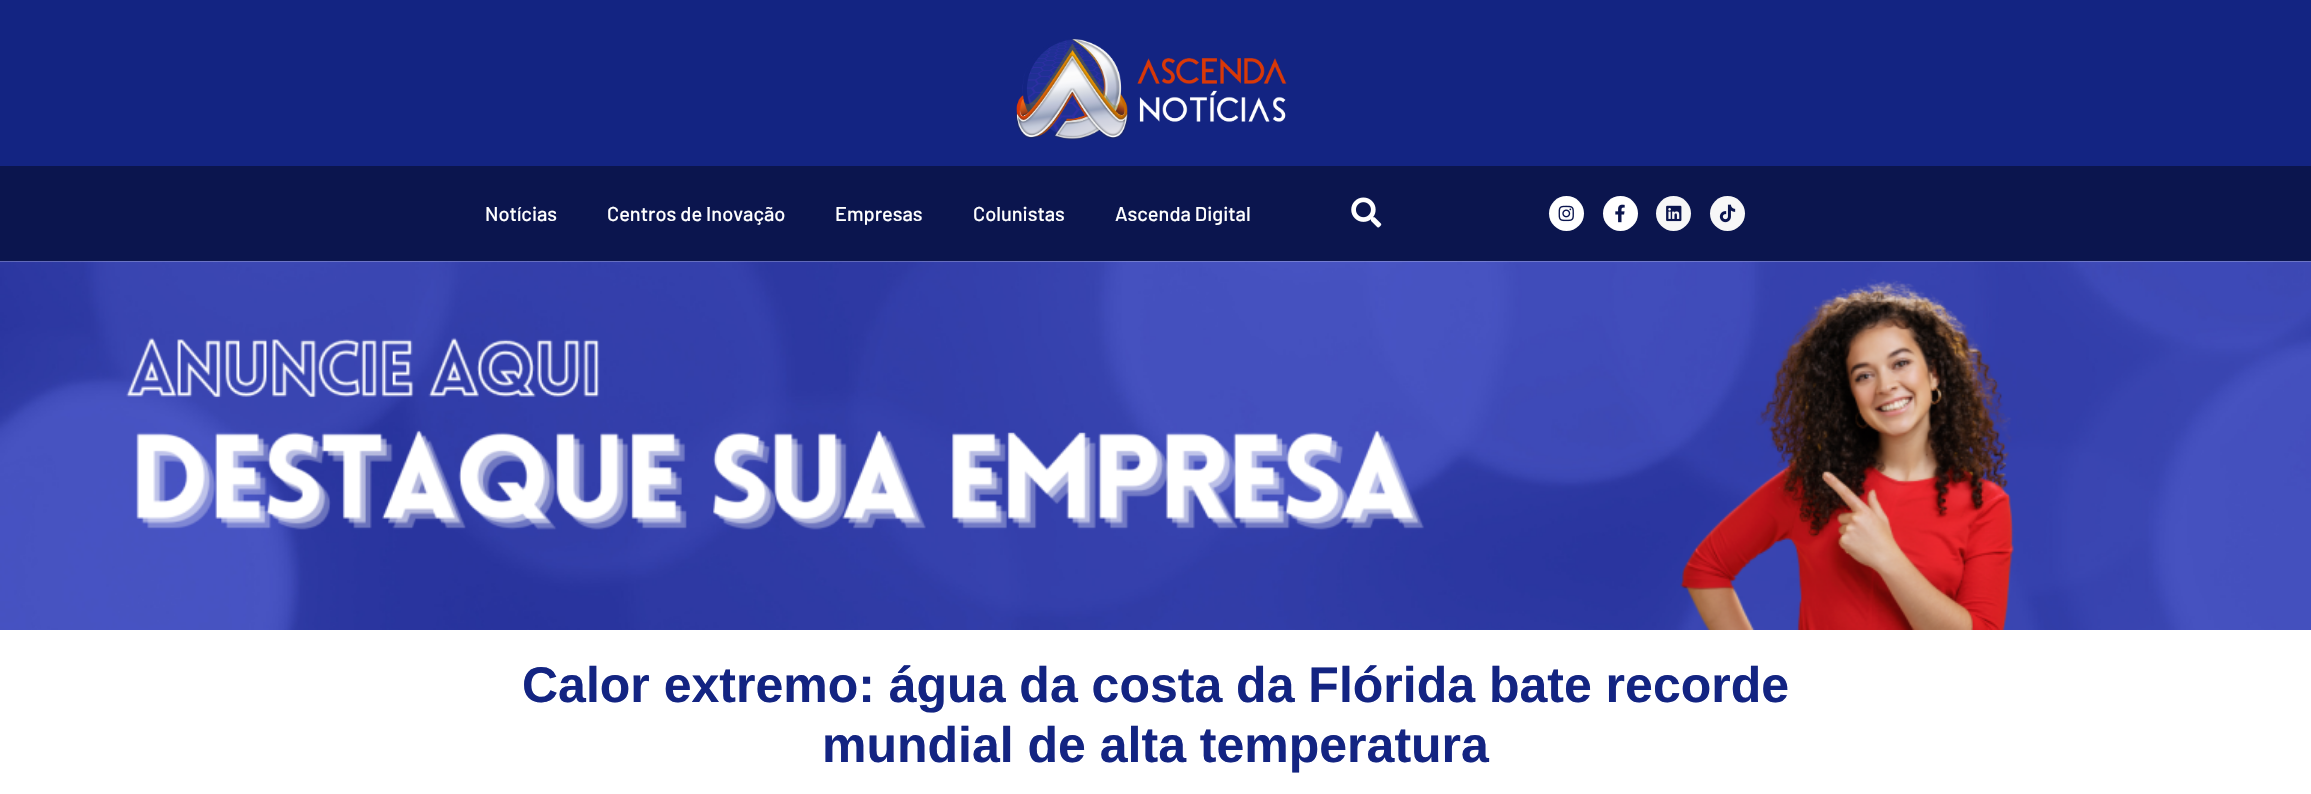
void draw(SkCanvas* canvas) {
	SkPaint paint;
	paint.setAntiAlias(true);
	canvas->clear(0xffffffff);
	paint.setColor(0xff132482);
	canvas->drawRect(SkRect::MakeXYWH(0, 0, 2311, 166), paint);
	canvas->drawImageRect(SkImages::DeferredFromEncodedData(SkData::MakeFromFileName("img1.png")), SkRect::MakeXYWH(1015, 38, 272, 102), SkSamplingOptions());
	paint.setColor(0xff0b154e);
	canvas->drawRect(SkRect::MakeXYWH(0, 166, 2311, 95), paint);
	SkFont f1(fontMgr->matchFamilyStyle("Barlow", SkFontStyle(500, SkFontStyle::kNormal_Width, SkFontStyle::kUpright_Slant)), 20);
	f1.setSubpixel(true);
	paint.setColor(0xffffffff);
	canvas->drawString("Notícias", 485, 221, f1, paint);
	canvas->drawString("Centros de Inovação", 607, 221, f1, paint);
	canvas->drawString("Empresas", 835, 221, f1, paint);
	canvas->drawString("Colunistas", 973, 221, f1, paint);
	canvas->drawString("Ascenda Digital", 1115, 221, f1, paint);
	canvas->drawImageRect(SkImages::DeferredFromEncodedData(SkData::MakeFromFileName("img2.png")), SkRect::MakeXYWH(1351, 197, 31, 31), SkSamplingOptions());
	canvas->drawCircle(1566.5, 213.5, 17.5, paint);
	canvas->drawImageRect(SkImages::DeferredFromEncodedData(SkData::MakeFromFileName("img3.png")), SkRect::MakeXYWH(1558, 205, 16, 17), SkSamplingOptions());
	canvas->drawCircle(1620.5, 213.5, 17.5, paint);
	canvas->drawImageRect(SkImages::DeferredFromEncodedData(SkData::MakeFromFileName("img4.png")), SkRect::MakeXYWH(1615, 204, 10, 19), SkSamplingOptions());
	paint.setColor(0xfff7f7f7);
	canvas->drawCircle(1673.5, 213.5, 17.5, paint);
	canvas->drawImageRect(SkImages::DeferredFromEncodedData(SkData::MakeFromFileName("img5.png")), SkRect::MakeXYWH(1666, 205, 16, 17), SkSamplingOptions());
	canvas->drawCircle(1727.5, 213.5, 17.5, paint);
	canvas->drawImageRect(SkImages::DeferredFromEncodedData(SkData::MakeFromFileName("img6.png")), SkRect::MakeXYWH(1719, 204, 17, 19), SkSamplingOptions());
	canvas->drawImageRect(SkImages::DeferredFromEncodedData(SkData::MakeFromFileName("img7.png")), SkRect::MakeXYWH(0, 261, 2311, 369), SkSamplingOptions());
	SkFont f2(fontMgr->matchFamilyStyle("Liberation Sans", SkFontStyle::Bold()), 50);
	f2.setSubpixel(true);
	paint.setColor(0xff132482);
	canvas->drawString("Calor extremo: água da costa da Flórida bate recorde", 522, 702, f2, paint);
	canvas->drawString("mundial de alta temperatura", 822, 762, f2, paint);
}
